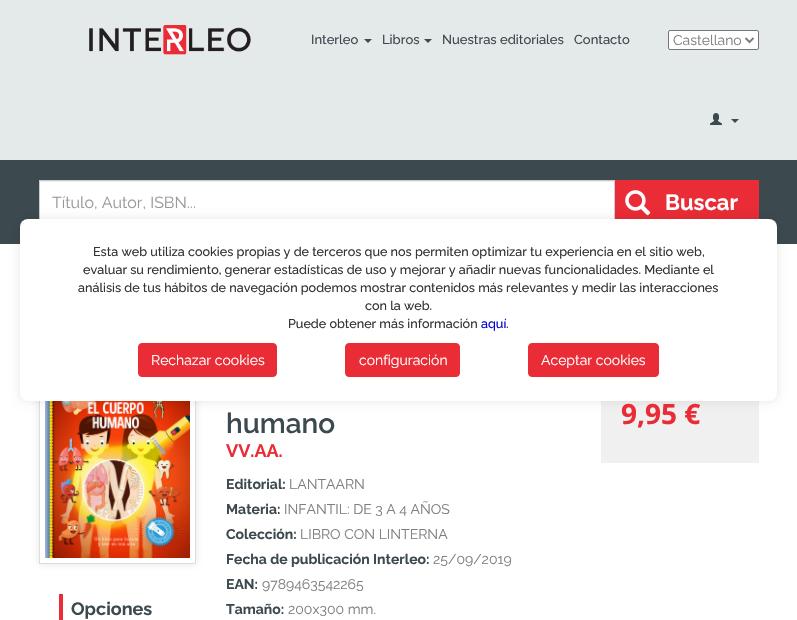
void draw(SkCanvas* canvas) {
	SkPaint paint;
	paint.setAntiAlias(true);
	auto svgPath = [&](const char* data, bool evenOdd = false) {
		SkPath result = *SkParsePath::FromSVGString(data);
		if (evenOdd) result.setFillType(SkPathFillType::kEvenOdd);
		return result;
	};
	canvas->clear(0xffffffff);
	paint.setColor(0xffe4e9e9);
	canvas->drawRect(SkRect::MakeXYWH(0, 0, 797, 160), paint);
	canvas->drawImageRect(SkImages::DeferredFromEncodedData(SkData::MakeFromFileName("img1.png")), SkRect::MakeXYWH(89, 25, 162, 30), SkSamplingOptions());
	SkFont f1(fontMgr->matchFamilyStyle("Raleway", SkFontStyle(500, SkFontStyle::kNormal_Width, SkFontStyle::kUpright_Slant)), 13);
	f1.setSubpixel(true);
	paint.setColor(0xff3c494f);
	canvas->drawString("Interleo", 311, 44, f1, paint);
	canvas->drawPath(svgPath("M364 39H372L368 43Z"), paint);
	canvas->drawString("Libros", 382, 44, f1, paint);
	canvas->drawPath(svgPath("M424 39H432L428 43Z"), paint);
	canvas->drawString("Nuestras editoriales", 442, 44, f1, paint);
	canvas->drawString("Contacto", 574, 44, f1, paint);
	paint.setColor(0xffffffff);
	canvas->drawRoundRect(SkRect::MakeXYWH(668.5, 30.5, 90, 19), 1.5, 1.5, paint);
	paint.setStroke(true);
	paint.setStrokeWidth(1);
	paint.setColor(0xff767676);
	canvas->drawRoundRect(SkRect::MakeXYWH(668.5, 30.5, 90, 19), 1.5, 1.5, paint);
	paint.setStrokeWidth(2);
	paint.setColor(0xff7e7e7e);
	canvas->drawPath(svgPath("M745.5 38L749.5 42L753.5 38"), paint);
	SkFont f2(fontMgr->matchFamilyStyle("Raleway", SkFontStyle::Normal()), 14);
	f2.setSubpixel(true);
	paint.setStroke(false);
	canvas->drawString("Castellano", 673, 45, f2, paint);
	canvas->drawImageRect(SkImages::DeferredFromEncodedData(SkData::MakeFromFileName("img2.png")), SkRect::MakeXYWH(710, 113, 12, 12), SkSamplingOptions());
	paint.setColor(0xff3c494f);
	canvas->drawPath(svgPath("M731 119H739L735 123Z"), paint);
	canvas->drawRect(SkRect::MakeXYWH(0, 160, 797, 84), paint);
	paint.setColor(0xffffffff);
	canvas->drawRect(SkRect::MakeXYWH(40, 182, 574, 37), paint);
	paint.setColor(0xffececec);
	canvas->drawRect(SkRect::MakeXYWH(40, 181, 574, 1), paint);
	paint.setStroke(true);
	paint.setStrokeWidth(1);
	paint.setColor(0xffcccccc);
	canvas->drawRect(SkRect::MakeXYWH(39.5, 180.5, 575, 43), paint);
	SkFont f3(fontMgr->matchFamilyStyle("Raleway", SkFontStyle::Normal()), 16);
	f3.setSubpixel(true);
	paint.setStroke(false);
	paint.setColor(0xff999999);
	canvas->drawString("Título, Autor, ISBN...", 52, 208, f3, paint);
	paint.setColor(0xffe92c35);
	canvas->drawRect(SkRect::MakeXYWH(615, 180, 144, 39), paint);
	canvas->drawImageRect(SkImages::DeferredFromEncodedData(SkData::MakeFromFileName("img3.png")), SkRect::MakeXYWH(625, 190, 26, 26), SkSamplingOptions());
	SkFont f4(fontMgr->matchFamilyStyle("Raleway", SkFontStyle::Bold()), 22);
	f4.setSubpixel(true);
	paint.setColor(0xffffffff);
	canvas->drawString("Buscar", 665, 210, f4, paint);
	canvas->save();
	canvas->clipPath(svgPath("M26 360H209V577H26ZM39 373H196V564H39Z", true), true);
	paint.setColor(0x80cccccc);
	paint.setMaskFilter(SkMaskFilter::MakeBlur(kNormal_SkBlurStyle, 4));
	canvas->drawRect(SkRect::MakeXYWH(39, 373, 157, 191), paint);
	paint.setMaskFilter(nullptr);
	canvas->restore();
	paint.setStroke(true);
	paint.setColor(0xffdddddd);
	canvas->drawRect(SkRect::MakeXYWH(39.5, 373.5, 156, 190), paint);
	canvas->drawImageRect(SkImages::DeferredFromEncodedData(SkData::MakeFromFileName("img4.png")), SkRect::MakeXYWH(45, 401, 145, 157), SkSamplingOptions());
	paint.setStroke(false);
	paint.setColor(0xfff0f0f0);
	canvas->drawRect(SkRect::MakeXYWH(601, 401, 158, 62), paint);
	paint.setColor(0x1a000000);
	paint.setMaskFilter(SkMaskFilter::MakeBlur(kNormal_SkBlurStyle, 5));
	canvas->drawRoundRect(SkRect::MakeXYWH(20, 219, 757, 182), 8, 8, paint);
	paint.setMaskFilter(nullptr);
	paint.setColor(0xffffffff);
	canvas->drawRoundRect(SkRect::MakeXYWH(20, 219, 757, 182), 8, 8, paint);
	SkFont f5(fontMgr->matchFamilyStyle("Raleway", SkFontStyle(500, SkFontStyle::kNormal_Width, SkFontStyle::kUpright_Slant)), 12.6);
	f5.setSubpixel(true);
	paint.setColor(0xff333333);
	canvas->drawString("Esta web utiliza cookies propias y de terceros que nos permiten optimizar tu experiencia en el sitio web,", 93, 256, f5, paint);
	canvas->drawString("evaluar su rendimiento, generar estadísticas de uso y mejorar y añadir nuevas funcionalidades. Mediante el", 83, 274, f5, paint);
	canvas->drawString("análisis de tus hábitos de navegación podemos mostrar contenidos más relevantes y medir las interacciones", 78, 292, f5, paint);
	canvas->drawString("con la web.", 365, 310, f5, paint);
	canvas->drawString("Puede obtener más información", 288, 328, f5, paint);
	paint.setColor(0xff0000cd);
	canvas->drawString("aquí", 481, 328, f5, paint);
	paint.setColor(0xff333333);
	canvas->drawString(".", 506, 328, f5, paint);
	paint.setColor(0xffe92c35);
	canvas->drawRoundRect(SkRect::MakeXYWH(138.5, 343.5, 138, 33), 3.5, 3.5, paint);
	paint.setStroke(true);
	canvas->drawRoundRect(SkRect::MakeXYWH(138.5, 343.5, 138, 33), 3.5, 3.5, paint);
	paint.setStroke(false);
	paint.setColor(0xffffffff);
	canvas->drawString("Rechazar cookies", 151, 365, f2, paint);
	paint.setColor(0xffe92c35);
	canvas->drawRoundRect(SkRect::MakeXYWH(345.5, 343.5, 114, 33), 3.5, 3.5, paint);
	paint.setStroke(true);
	canvas->drawRoundRect(SkRect::MakeXYWH(345.5, 343.5, 114, 33), 3.5, 3.5, paint);
	paint.setStroke(false);
	paint.setColor(0xffffffff);
	canvas->drawString("configuración", 359, 365, f2, paint);
	paint.setColor(0xffe92c35);
	canvas->drawRoundRect(SkRect::MakeXYWH(528.5, 343.5, 130, 33), 3.5, 3.5, paint);
	paint.setStroke(true);
	canvas->drawRoundRect(SkRect::MakeXYWH(528.5, 343.5, 130, 33), 3.5, 3.5, paint);
	paint.setStroke(false);
	paint.setColor(0xffffffff);
	canvas->drawString("Aceptar cookies", 541, 365, f2, paint);
	paint.setColor(0xffe92c35);
	canvas->drawRect(SkRect::MakeXYWH(59, 594, 4, 26), paint);
	SkFont f6(fontMgr->matchFamilyStyle("Raleway", SkFontStyle::Bold()), 18);
	f6.setSubpixel(true);
	paint.setColor(0xff3c494f);
	canvas->drawString("Opciones", 71, 615, f6, paint);
	SkFont f7(fontMgr->matchFamilyStyle("Raleway", SkFontStyle(600, SkFontStyle::kNormal_Width, SkFontStyle::kUpright_Slant)), 28);
	f7.setSubpixel(true);
	canvas->drawString("humano", 226, 433, f7, paint);
	paint.setColor(0xffe92c35);
	canvas->drawString("VV.AA.", 226, 457, f6, paint);
	SkFont f8(fontMgr->matchFamilyStyle("Raleway", SkFontStyle::Bold()), 14);
	f8.setSubpixel(true);
	paint.setColor(0xff3c494f);
	canvas->drawString("Editorial:", 226, 489, f8, paint);
	paint.setColor(0xff7e7e7e);
	canvas->drawString("LANTAARN", 289, 489, f2, paint);
	paint.setColor(0xff3c494f);
	canvas->drawString("Materia:", 226, 514, f8, paint);
	paint.setColor(0xff7e7e7e);
	canvas->drawString("INFANTIL: DE 3 A 4 AÑOS", 284, 514, f2, paint);
	paint.setColor(0xff3c494f);
	canvas->drawString("Colección:", 226, 539, f8, paint);
	paint.setColor(0xff7e7e7e);
	canvas->drawString("LIBRO CON LINTERNA", 300, 539, f2, paint);
	paint.setColor(0xff3c494f);
	canvas->drawString("Fecha de publicación Interleo:", 226, 564, f8, paint);
	paint.setColor(0xff7e7e7e);
	canvas->drawString("25/09/2019", 433, 564, f2, paint);
	paint.setColor(0xff3c494f);
	canvas->drawString("EAN:", 226, 589, f8, paint);
	paint.setColor(0xff7e7e7e);
	canvas->drawString("9789463542265", 262, 589, f2, paint);
	paint.setColor(0xff3c494f);
	canvas->drawString("Tamaño:", 226, 614, f8, paint);
	paint.setColor(0xff7e7e7e);
	canvas->drawString("200x300 mm.", 288, 614, f2, paint);
	SkFont f9(fontMgr->matchFamilyStyle("Open Sans", SkFontStyle::Bold()), 28);
	f9.setSubpixel(true);
	paint.setColor(0xffe92c35);
	canvas->drawString("9,95 €", 621, 424, f9, paint);
}
